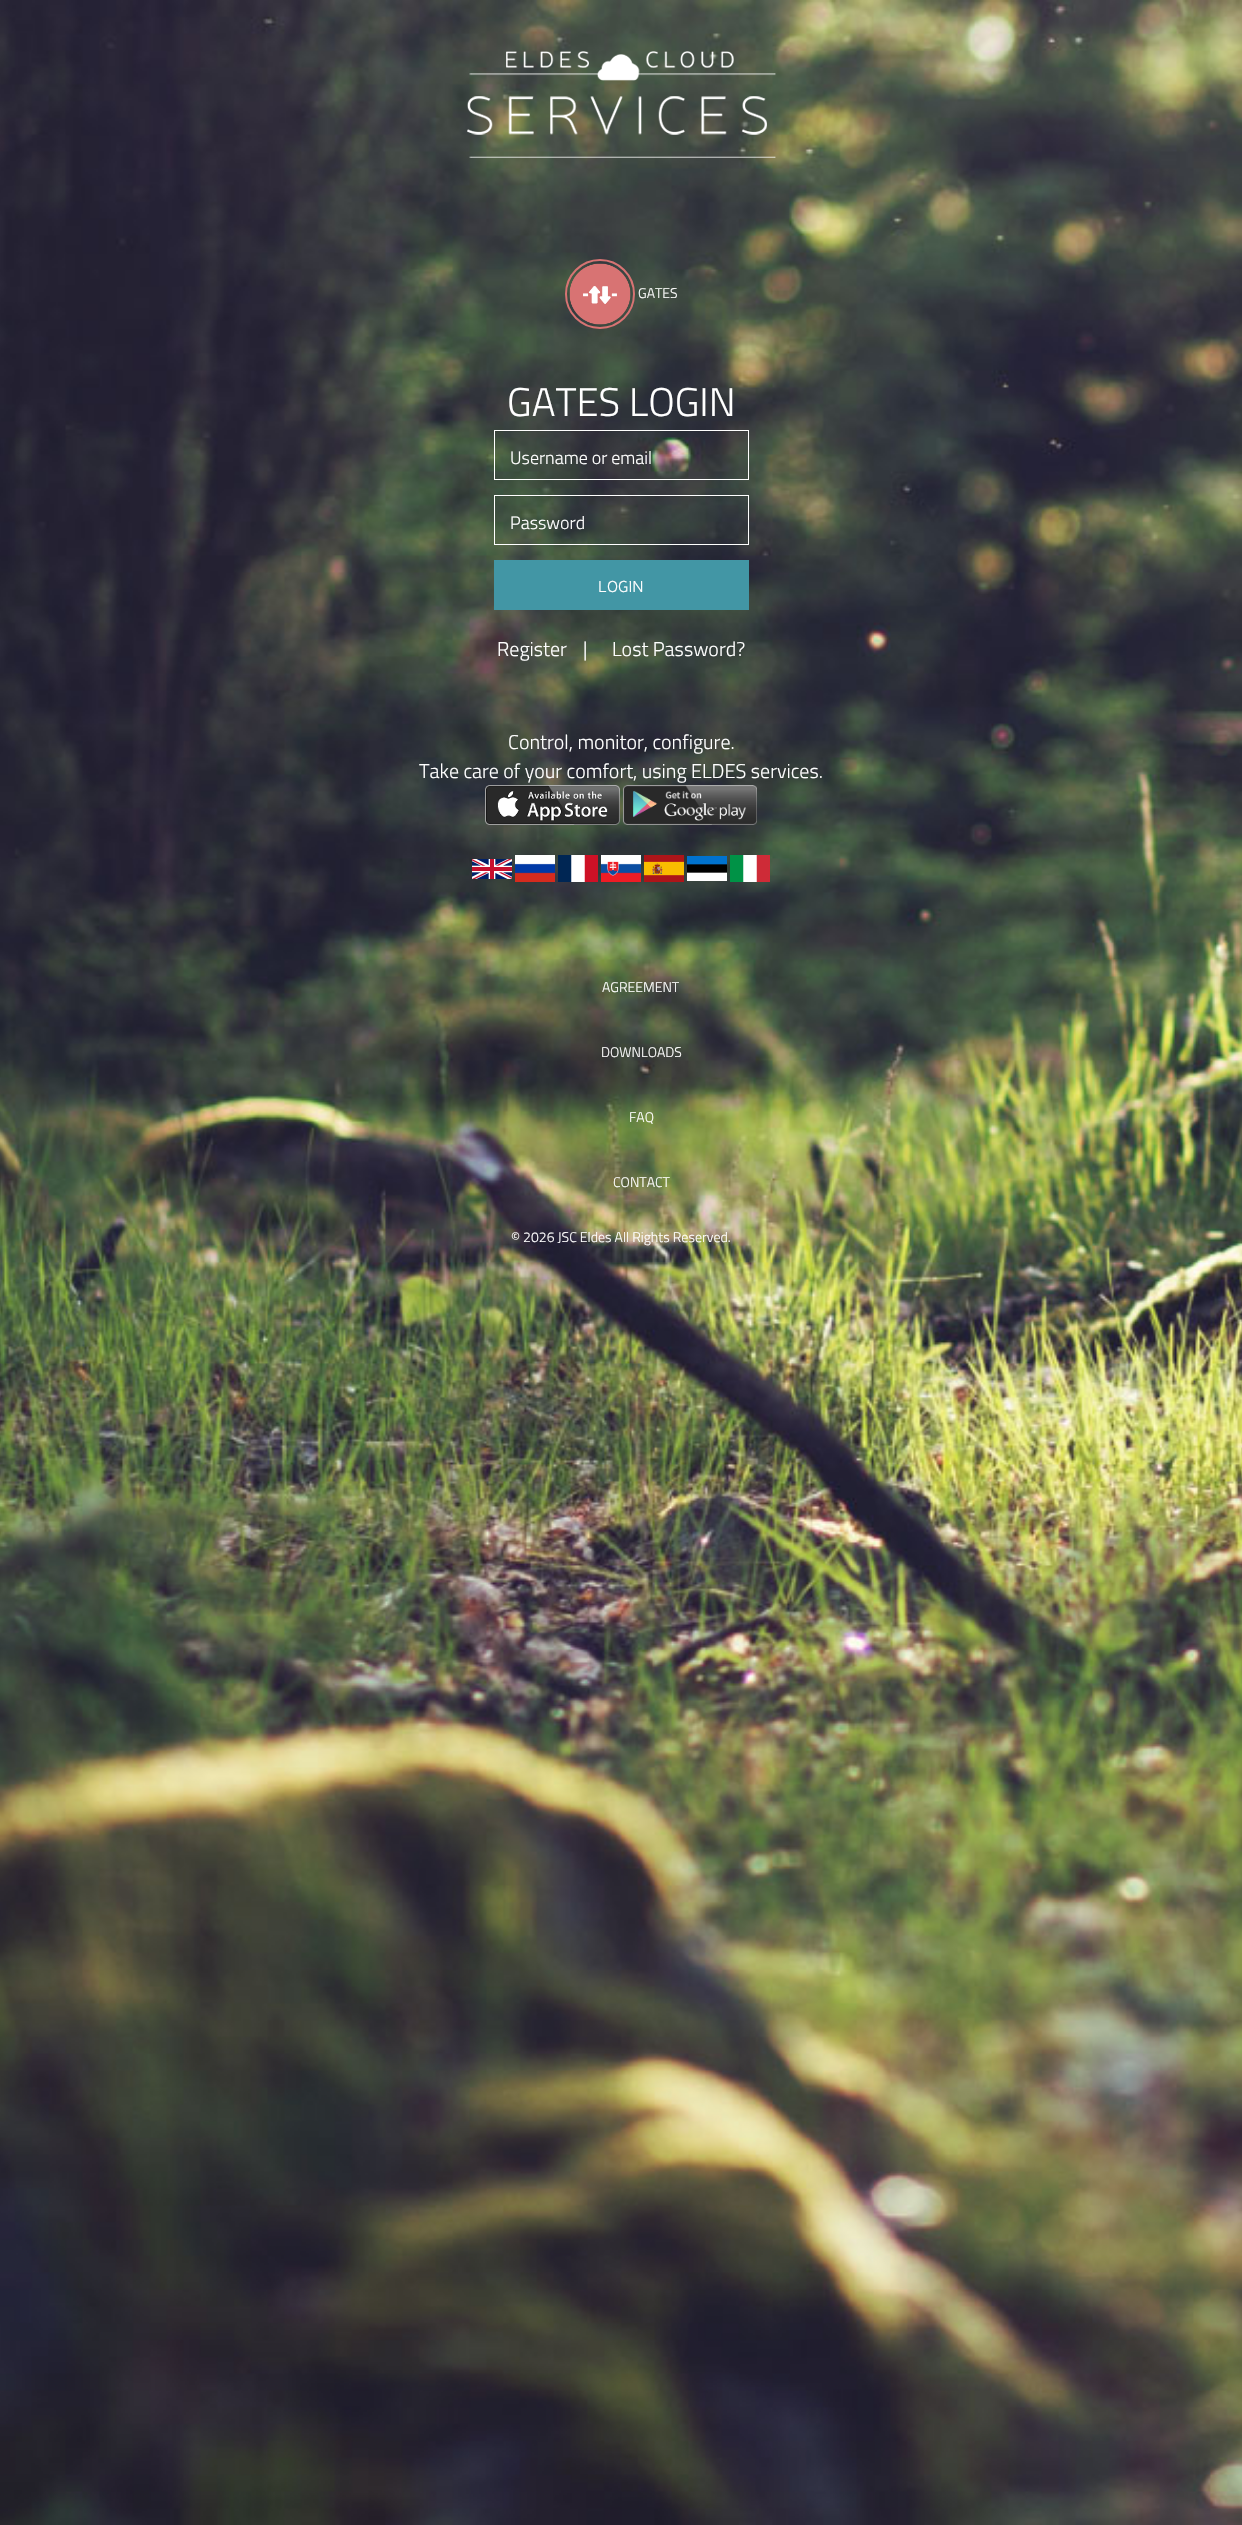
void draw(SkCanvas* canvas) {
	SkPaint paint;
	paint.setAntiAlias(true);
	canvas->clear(0xffffffff);
	canvas->drawImageRect(SkImages::DeferredFromEncodedData(SkData::MakeFromFileName("img1.png")), SkRect::MakeXYWH(0, 0, 1242, 2525), SkSamplingOptions());
	canvas->drawImageRect(SkImages::DeferredFromEncodedData(SkData::MakeFromFileName("img2.png")), SkRect::MakeXYWH(467, 51, 309, 107), SkSamplingOptions());
	paint.setStroke(true);
	paint.setStrokeWidth(2);
	paint.setColor(0xffd87373);
	canvas->drawCircle(600, 294, 34, paint);
	canvas->drawImageRect(SkImages::DeferredFromEncodedData(SkData::MakeFromFileName("img3.png")), SkRect::MakeXYWH(569, 263, 62, 62), SkSamplingOptions());
	SkFont f1(fontMgr->matchFamilyStyle("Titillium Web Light", SkFontStyle(300, SkFontStyle::kNormal_Width, SkFontStyle::kUpright_Slant)), 14);
	f1.setSubpixel(true);
	paint.setStroke(false);
	paint.setColor(0xffffffff);
	canvas->drawString("GATES", 638, 298, f1, paint);
	SkFont f2(fontMgr->matchFamilyStyle("Titillium Web Light", SkFontStyle(300, SkFontStyle::kNormal_Width, SkFontStyle::kUpright_Slant)), 40);
	f2.setSubpixel(true);
	canvas->drawString("GATES LOGIN", 507, 416, f2, paint);
	paint.setColor(0x12000000);
	canvas->drawRect(SkRect::MakeXYWH(495, 431, 253, 1), paint);
	paint.setStroke(true);
	paint.setStrokeWidth(1);
	paint.setColor(0xffffffff);
	canvas->drawRect(SkRect::MakeXYWH(494.5, 430.5, 254, 49), paint);
	SkFont f3(fontMgr->matchFamilyStyle("Titillium Web Light", SkFontStyle(300, SkFontStyle::kNormal_Width, SkFontStyle::kUpright_Slant)), 18);
	f3.setSubpixel(true);
	paint.setStroke(false);
	canvas->drawString("Username or email", 510, 464, f3, paint);
	paint.setColor(0x12000000);
	canvas->drawRect(SkRect::MakeXYWH(495, 496, 253, 1), paint);
	paint.setStroke(true);
	paint.setColor(0xffffffff);
	canvas->drawRect(SkRect::MakeXYWH(494.5, 495.5, 254, 49), paint);
	paint.setStroke(false);
	canvas->drawString("Password", 510, 529, f3, paint);
	paint.setColor(0xff4296a5);
	canvas->drawRect(SkRect::MakeXYWH(494, 560, 255, 50), paint);
	SkFont f4(fontMgr->matchFamilyStyle("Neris", SkFontStyle(300, SkFontStyle::kNormal_Width, SkFontStyle::kUpright_Slant)), 16);
	f4.setSubpixel(true);
	paint.setColor(0xffffffff);
	canvas->drawString("LOGIN", 598, 592, f4, paint);
	SkFont f5(fontMgr->matchFamilyStyle("Titillium Web Light", SkFontStyle(300, SkFontStyle::kNormal_Width, SkFontStyle::kUpright_Slant)), 20);
	f5.setSubpixel(true);
	canvas->drawString("Register", 497, 656, f5, paint);
	canvas->drawString("|", 583, 656, f5, paint);
	canvas->drawString("Lost Password?", 612, 656, f5, paint);
	canvas->drawString("Control, monitor, configure.", 508, 749, f5, paint);
	canvas->drawString("Take care of your comfort, using ELDES services.", 419, 778, f5, paint);
	canvas->drawImageRect(SkImages::DeferredFromEncodedData(SkData::MakeFromFileName("img4.png")), SkRect::MakeXYWH(485, 785, 135, 40), SkSamplingOptions());
	canvas->drawImageRect(SkImages::DeferredFromEncodedData(SkData::MakeFromFileName("img5.png")), SkRect::MakeXYWH(623, 785, 134, 40), SkSamplingOptions());
	canvas->drawImageRect(SkImages::DeferredFromEncodedData(SkData::MakeFromFileName("img6.png")), SkRect::MakeXYWH(472, 859, 40, 20), SkSamplingOptions());
	canvas->drawImageRect(SkImages::DeferredFromEncodedData(SkData::MakeFromFileName("img7.png")), SkRect::MakeXYWH(515, 855, 40, 27), SkSamplingOptions());
	canvas->drawImageRect(SkImages::DeferredFromEncodedData(SkData::MakeFromFileName("img8.png")), SkRect::MakeXYWH(558, 855, 40, 27), SkSamplingOptions());
	canvas->drawImageRect(SkImages::DeferredFromEncodedData(SkData::MakeFromFileName("img9.png")), SkRect::MakeXYWH(601, 855, 40, 27), SkSamplingOptions());
	canvas->drawImageRect(SkImages::DeferredFromEncodedData(SkData::MakeFromFileName("img10.png")), SkRect::MakeXYWH(644, 855, 40, 27), SkSamplingOptions());
	canvas->drawImageRect(SkImages::DeferredFromEncodedData(SkData::MakeFromFileName("img11.png")), SkRect::MakeXYWH(687, 856, 40, 25), SkSamplingOptions());
	canvas->drawImageRect(SkImages::DeferredFromEncodedData(SkData::MakeFromFileName("img12.png")), SkRect::MakeXYWH(730, 855, 40, 27), SkSamplingOptions());
	canvas->drawString("AGREEMENT", 602, 992, f1, paint);
	canvas->drawString("DOWNLOADS", 601, 1057, f1, paint);
	canvas->drawString("FAQ", 629, 1122, f1, paint);
	canvas->drawString("CONTACT", 613, 1187, f1, paint);
	canvas->drawString("© 2026 JSC Eldes All Rights Reserved.", 511, 1242, f1, paint);
}
